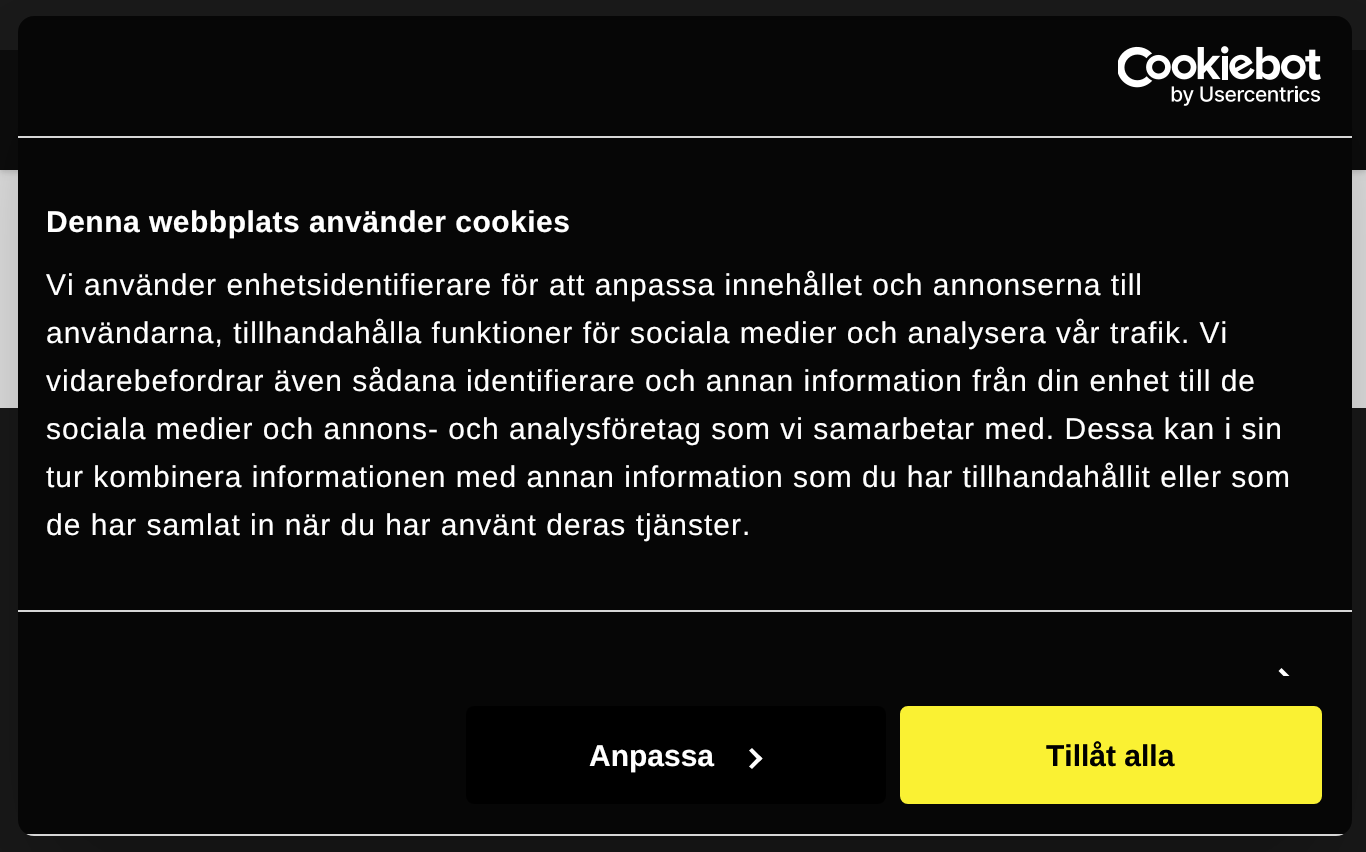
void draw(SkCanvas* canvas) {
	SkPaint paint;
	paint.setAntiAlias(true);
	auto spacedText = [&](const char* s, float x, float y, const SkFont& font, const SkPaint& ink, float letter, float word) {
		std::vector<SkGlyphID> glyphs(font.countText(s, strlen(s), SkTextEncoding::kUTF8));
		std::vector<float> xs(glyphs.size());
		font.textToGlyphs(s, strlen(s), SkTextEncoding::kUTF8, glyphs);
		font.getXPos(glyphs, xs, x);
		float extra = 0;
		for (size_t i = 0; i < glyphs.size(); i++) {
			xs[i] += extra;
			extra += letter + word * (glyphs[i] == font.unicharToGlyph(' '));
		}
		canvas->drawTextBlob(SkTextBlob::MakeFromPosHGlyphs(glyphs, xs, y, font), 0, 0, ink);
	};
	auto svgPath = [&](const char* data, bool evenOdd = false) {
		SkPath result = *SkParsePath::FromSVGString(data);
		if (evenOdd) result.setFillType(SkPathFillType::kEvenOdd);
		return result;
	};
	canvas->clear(0xffededed);
	paint.setColor(0x29000000);
	paint.setMaskFilter(SkMaskFilter::MakeBlur(kNormal_SkBlurStyle, 3));
	canvas->drawRect(SkRect::MakeXYWH(0, 52, 1366, 120), paint);
	paint.setMaskFilter(nullptr);
	paint.setColor(0xff0d0d0d);
	canvas->drawRect(SkRect::MakeXYWH(0, 50, 1366, 120), paint);
	paint.setColor(0xff1a1a1a);
	canvas->drawRect(SkRect::MakeXYWH(0, 0, 1366, 50), paint);
	canvas->drawRect(SkRect::MakeXYWH(0, 408, 1366, 444), paint);
	paint.setColor(0x4d000000);
	paint.setMaskFilter(SkMaskFilter::MakeBlur(kNormal_SkBlurStyle, 68));
	canvas->drawRoundRect(SkRect::MakeXYWH(18, 80, 1334, 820), 16, 16, paint);
	paint.setMaskFilter(nullptr);
	paint.setColor(0xff060606);
	canvas->drawRoundRect(SkRect::MakeXYWH(18, 16, 1334, 820), 16, 16, paint);
	paint.setColor(0xffd6d6d6);
	canvas->drawRect(SkRect::MakeXYWH(18, 136, 1334, 2), paint);
	canvas->drawImageRect(SkImages::DeferredFromEncodedData(SkData::MakeFromFileName("img1.png")), SkRect::MakeXYWH(1118, 46, 203, 60), SkSamplingOptions());
	canvas->drawRect(SkRect::MakeXYWH(18, 610, 1334, 2), paint);
	SkFont f1(fontMgr->matchFamilyStyle("Liberation Sans", SkFontStyle::Bold()), 30);
	f1.setSubpixel(true);
	paint.setColor(0xffffffff);
	spacedText("Denna webbplats använder cookies", 46, 232, f1, paint, 0.5, 0);
	SkFont f2(fontMgr->matchFamilyStyle("Liberation Sans", SkFontStyle::Normal()), 30);
	f2.setSubpixel(true);
	spacedText("Vi använder enhetsidentifierare för att anpassa innehållet och annonserna till", 46, 295, f2, paint, 1, 0);
	spacedText("användarna, tillhandahålla funktioner för sociala medier och analysera vår trafik. Vi", 46, 343, f2, paint, 1, 0);
	spacedText("vidarebefordrar även sådana identifierare och annan information från din enhet till de", 46, 391, f2, paint, 1, 0);
	spacedText("sociala medier och annons- och analysföretag som vi samarbetar med. Dessa kan i sin", 46, 439, f2, paint, 1, 0);
	spacedText("tur kombinera informationen med annan information som du har tillhandahållit eller som", 46, 487, f2, paint, 1, 0);
	spacedText("de har samlat in när du har använt deras tjänster.", 46, 535, f2, paint, 1, 0);
	canvas->save();
	canvas->clipRect(SkRect::MakeXYWH(18, 138, 1334, 538));
	canvas->drawPath(svgPath("M1281.5 668L1293.5 680L1290.5 683L1278.5 671Z"), paint);
	canvas->restore();
	canvas->save();
	canvas->clipPath(svgPath("M34 16H1336C1345 16 1352 23 1352 32V820C1352 829 1345 836 1336 836H34C25 836 18 829 18 820V32C18 23 25 16 34 16Z"), true);
	paint.setColor(0xffd6d6d6);
	canvas->drawRect(SkRect::MakeXYWH(18, 834, 1334, 2), paint);
	canvas->restore();
	paint.setColor(0xff000000);
	canvas->drawRoundRect(SkRect::MakeXYWH(466, 706, 420, 98), 8, 8, paint);
	paint.setColor(0xffffffff);
	canvas->drawString("Anpassa", 589, 766, f1, paint);
	canvas->drawPath(svgPath("M752 748L762.5 758.5L759.5 761.5L749 750.5Z"), paint);
	canvas->drawPath(svgPath("M759.5 755.5L762.5 758.5L752 769L749 766.5Z"), paint);
	paint.setColor(0xfffaf133);
	canvas->drawRoundRect(SkRect::MakeXYWH(902, 708, 418, 94), 6, 6, paint);
	paint.setStroke(true);
	paint.setStrokeWidth(4);
	canvas->drawRoundRect(SkRect::MakeXYWH(902, 708, 418, 94), 6, 6, paint);
	paint.setStroke(false);
	paint.setColor(0xff000000);
	canvas->drawString("Tillåt alla", 1046, 766, f1, paint);
}
